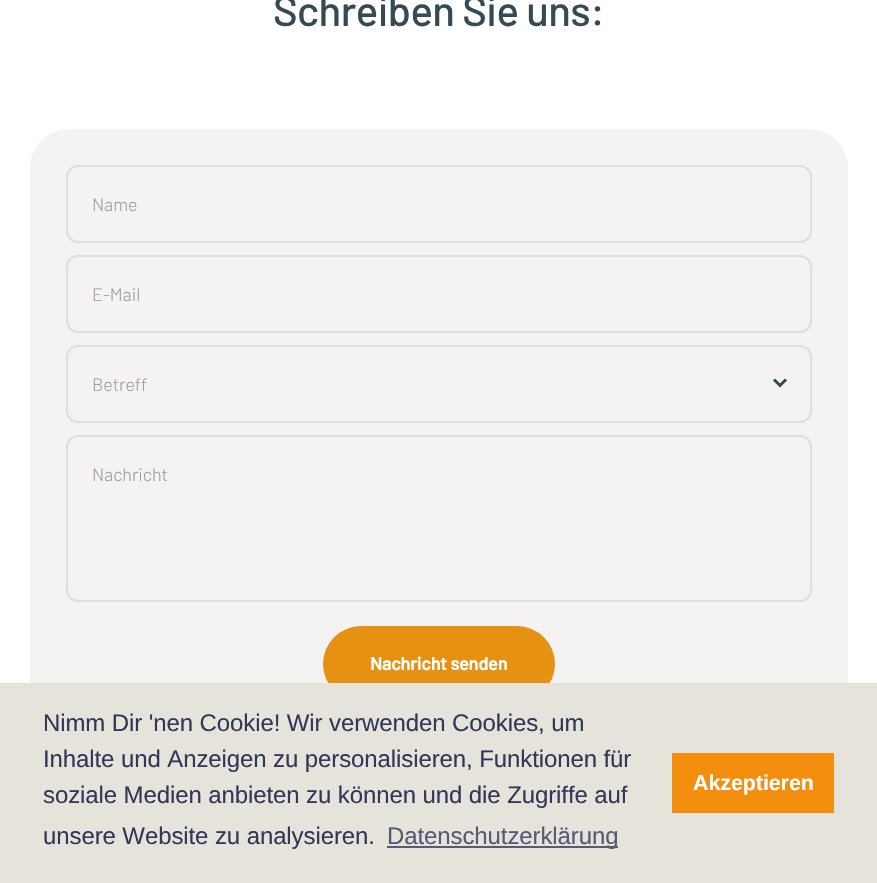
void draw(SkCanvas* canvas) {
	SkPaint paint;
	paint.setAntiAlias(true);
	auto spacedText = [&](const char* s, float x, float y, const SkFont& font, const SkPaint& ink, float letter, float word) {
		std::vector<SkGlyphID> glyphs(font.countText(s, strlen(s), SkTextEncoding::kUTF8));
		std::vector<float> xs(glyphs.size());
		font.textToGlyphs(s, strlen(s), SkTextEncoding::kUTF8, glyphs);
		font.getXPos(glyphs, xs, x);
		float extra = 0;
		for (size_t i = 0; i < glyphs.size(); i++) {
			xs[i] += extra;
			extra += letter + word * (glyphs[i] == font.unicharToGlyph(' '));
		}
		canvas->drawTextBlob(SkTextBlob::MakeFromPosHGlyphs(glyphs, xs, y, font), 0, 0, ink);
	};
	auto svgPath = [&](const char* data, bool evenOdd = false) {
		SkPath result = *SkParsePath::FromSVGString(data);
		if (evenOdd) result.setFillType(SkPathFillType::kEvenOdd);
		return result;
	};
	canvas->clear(0xffffffff);
	SkFont f1(fontMgr->matchFamilyStyle("Barlow", SkFontStyle(500, SkFontStyle::kNormal_Width, SkFontStyle::kUpright_Slant)), 42);
	f1.setSubpixel(true);
	paint.setColor(0xff344a55);
	spacedText("Schreiben Sie uns:", 273, 26, f1, paint, -0.6, 0);
	paint.setColor(0xfff4f3f1);
	canvas->drawRoundRect(SkRect::MakeXYWH(30, 129, 818, 609), 39, 39, paint);
	paint.setStroke(true);
	paint.setStrokeWidth(2);
	paint.setColor(0xffdddfde);
	canvas->drawRoundRect(SkRect::MakeXYWH(67, 166, 744, 76), 11, 11, paint);
	SkFont f2(fontMgr->matchFamilyStyle("Barlow", SkFontStyle(300, SkFontStyle::kNormal_Width, SkFontStyle::kUpright_Slant)), 18);
	f2.setSubpixel(true);
	paint.setStroke(false);
	paint.setColor(0xff949fa3);
	spacedText("Name", 92, 211, f2, paint, -0.1, 0);
	paint.setStroke(true);
	paint.setColor(0xffdddfde);
	canvas->drawRoundRect(SkRect::MakeXYWH(67, 256, 744, 76), 11, 11, paint);
	paint.setStroke(false);
	paint.setColor(0xff949fa3);
	spacedText("E-Mail", 92, 301, f2, paint, -0.1, 0);
	paint.setStroke(true);
	paint.setColor(0xffdddfde);
	canvas->drawRoundRect(SkRect::MakeXYWH(67, 346, 744, 76), 11, 11, paint);
	paint.setStroke(false);
	paint.setColor(0xff949fa3);
	spacedText("Betreff", 92, 391, f2, paint, -0.1, 0);
	paint.setStroke(true);
	paint.setStrokeWidth(3);
	paint.setColor(0xff344a55);
	canvas->drawPath(svgPath("M774 379.5L780 385.5L786 379.5"), paint);
	paint.setStrokeWidth(2);
	paint.setColor(0xffdddfde);
	canvas->drawRoundRect(SkRect::MakeXYWH(67, 436, 744, 165), 11, 11, paint);
	paint.setStroke(false);
	paint.setColor(0xff949fa3);
	spacedText("Nachricht", 92, 481, f2, paint, -0.1, 0);
	paint.setColor(0xffe69111);
	canvas->drawRoundRect(SkRect::MakeXYWH(323, 626, 232, 76), 38, 38, paint);
	SkFont f3(fontMgr->matchFamilyStyle("Barlow", SkFontStyle::Bold()), 18);
	f3.setSubpixel(true);
	paint.setColor(0xffffffff);
	spacedText("Nachricht senden", 370, 670, f3, paint, -0.1, 0);
	paint.setColor(0xffe6e3db);
	canvas->drawRect(SkRect::MakeXYWH(0, 683, 877, 200), paint);
	SkFont f4(fontMgr->matchFamilyStyle("Liberation Sans", SkFontStyle::Normal()), 24);
	f4.setSubpixel(true);
	paint.setColor(0xff32385a);
	spacedText("Nimm Dir 'nen Cookie! Wir verwenden Cookies, um", 43, 731, f4, paint, -0.1, 0);
	spacedText("Inhalte und Anzeigen zu personalisieren, Funktionen für", 43, 767, f4, paint, -0.1, 0);
	spacedText("soziale Medien anbieten zu können und die Zugriffe auf", 43, 803, f4, paint, -0.1, 0);
	spacedText("unsere Website zu analysieren.", 43, 844, f4, paint, -0.1, 0);
	paint.setColor(0xff565a74);
	canvas->drawRect(SkRect::MakeXYWH(387, 846, 231, 2), paint);
	spacedText("Datenschutzerklärung", 387, 844, f4, paint, -0.1, 0);
	paint.setColor(0xfff38e0f);
	canvas->drawRect(SkRect::MakeXYWH(672, 753, 162, 60), paint);
	SkFont f5(fontMgr->matchFamilyStyle("Liberation Sans", SkFontStyle::Bold()), 21.5);
	f5.setSubpixel(true);
	paint.setColor(0xffffffff);
	spacedText("Akzeptieren", 693, 790, f5, paint, -0.1, 0);
}
